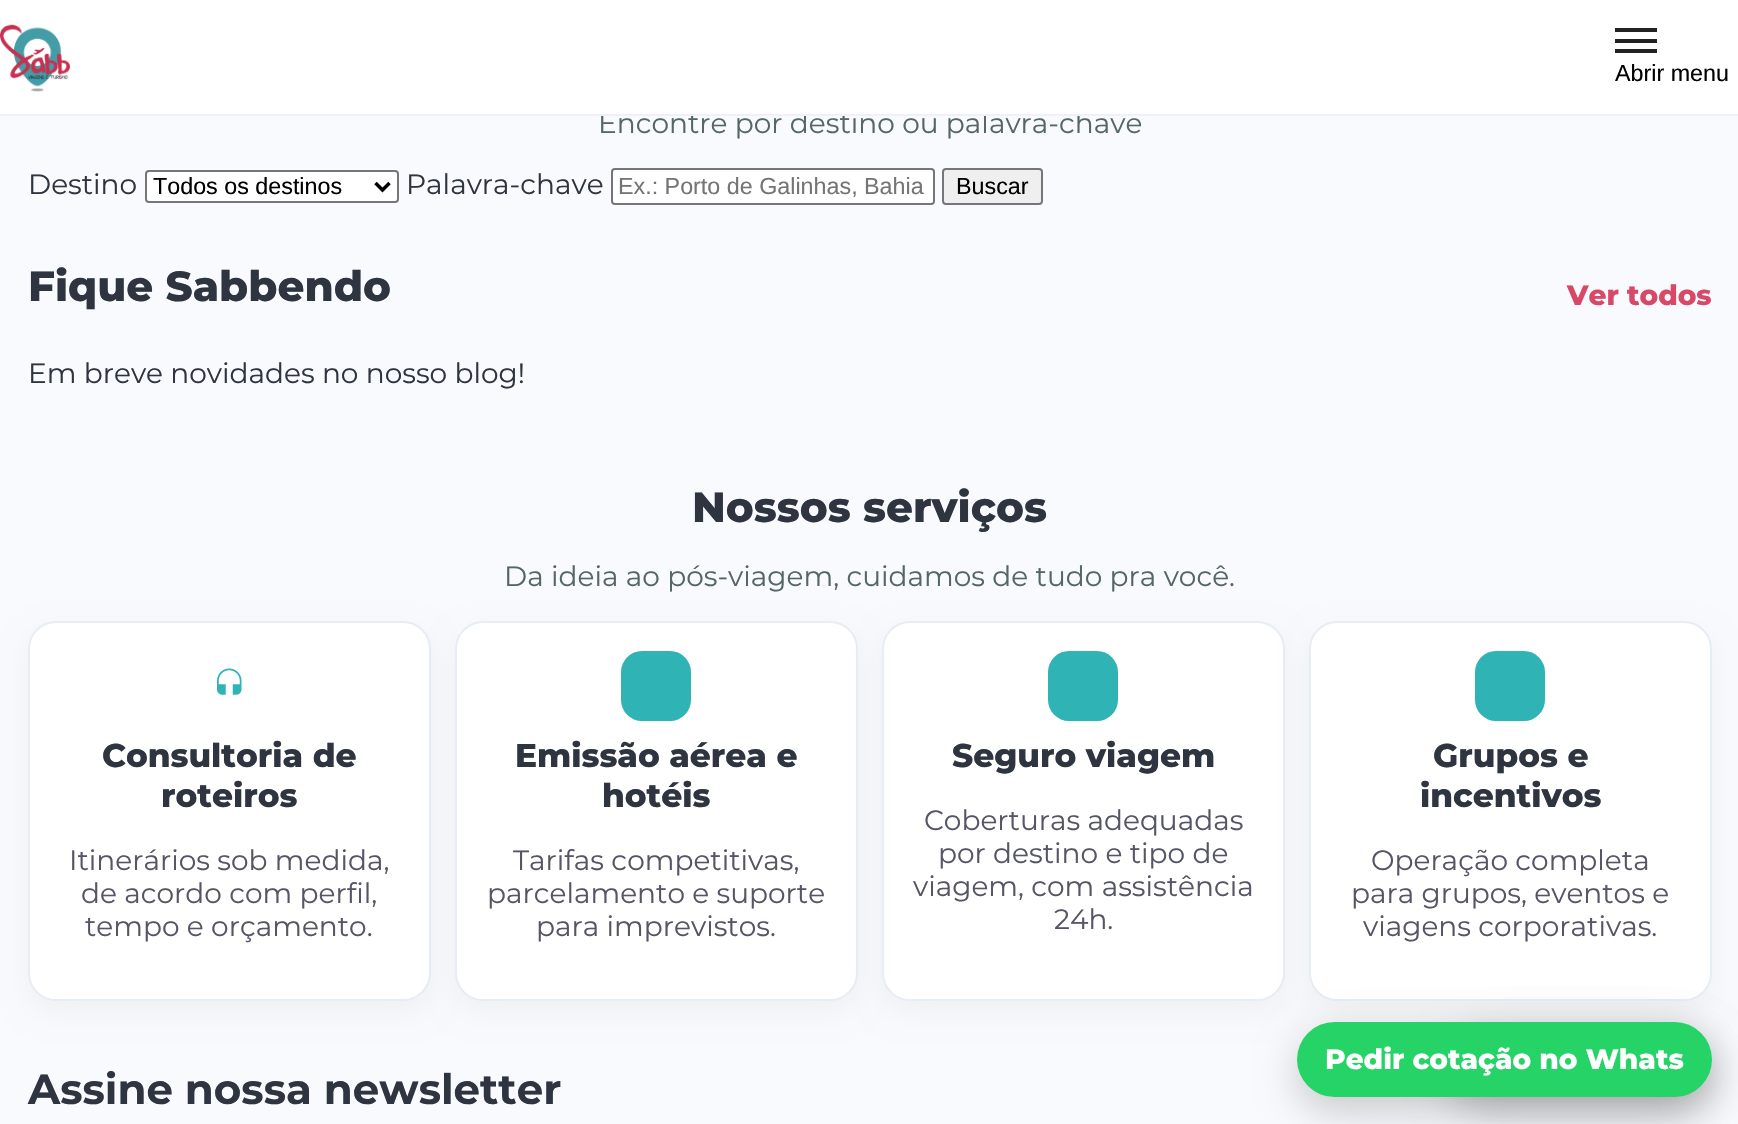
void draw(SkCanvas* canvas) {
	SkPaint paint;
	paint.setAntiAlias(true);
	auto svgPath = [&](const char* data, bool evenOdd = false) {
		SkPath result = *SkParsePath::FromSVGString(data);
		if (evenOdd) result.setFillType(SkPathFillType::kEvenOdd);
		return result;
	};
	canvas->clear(0xfff8fafd);
	SkFont f1(fontMgr->matchFamilyStyle("Montserrat", SkFontStyle::Normal()), 28);
	f1.setSubpixel(true);
	paint.setColor(0xff556666);
	canvas->drawString("Encontre por destino ou palavra-chave", 598, 133, f1, paint);
	paint.setColor(0xffffffff);
	canvas->drawRect(SkRect::MakeXYWH(0, 0, 1738, 114), paint);
	paint.setColor(0xffeef2f7);
	canvas->drawRect(SkRect::MakeXYWH(0, 114, 1738, 2), paint);
	canvas->drawImageRect(SkImages::DeferredFromEncodedData(SkData::MakeFromFileName("img1.png")), SkRect::MakeXYWH(0, 24, 70, 68), SkSamplingOptions());
	paint.setColor(0xff222222);
	canvas->drawRect(SkRect::MakeXYWH(1615, 28, 42, 4), paint);
	canvas->drawRect(SkRect::MakeXYWH(1615, 39, 42, 4), paint);
	canvas->drawRect(SkRect::MakeXYWH(1615, 49, 42, 4), paint);
	SkFont f2(fontMgr->matchFamilyStyle("Liberation Sans", SkFontStyle::Normal()), 23.3);
	f2.setSubpixel(true);
	paint.setColor(0xff000000);
	canvas->drawString("Abrir menu", 1615, 81, f2, paint);
	paint.setColor(0xff2e3440);
	canvas->drawString("Destino", 28, 194, f1, paint);
	paint.setColor(0xffffffff);
	canvas->drawRoundRect(SkRect::MakeXYWH(146, 171, 252, 31), 3, 3, paint);
	paint.setStroke(true);
	paint.setStrokeWidth(2);
	paint.setColor(0xff767676);
	canvas->drawRoundRect(SkRect::MakeXYWH(146, 171, 252, 31), 3, 3, paint);
	paint.setStrokeWidth(3.5);
	paint.setColor(0xff000000);
	canvas->drawPath(svgPath("M375.5 183L382.5 190L389.5 183"), paint);
	paint.setStroke(false);
	canvas->drawString("Todos os destinos", 153, 194, f2, paint);
	paint.setColor(0xff2e3440);
	canvas->drawString("Palavra-chave", 406, 194, f1, paint);
	paint.setColor(0xffffffff);
	canvas->drawRoundRect(SkRect::MakeXYWH(612, 169, 322, 35), 3, 3, paint);
	paint.setStroke(true);
	paint.setStrokeWidth(2);
	paint.setColor(0xff767676);
	canvas->drawRoundRect(SkRect::MakeXYWH(612, 169, 322, 35), 3, 3, paint);
	paint.setStroke(false);
	paint.setColor(0xff757575);
	canvas->drawString("Ex.: Porto de Galinhas, Bahia", 618, 194, f2, paint);
	paint.setColor(0xffefefef);
	canvas->drawRoundRect(SkRect::MakeXYWH(943, 169, 99, 35), 3, 3, paint);
	paint.setStroke(true);
	paint.setColor(0xff767676);
	canvas->drawRoundRect(SkRect::MakeXYWH(943, 169, 99, 35), 3, 3, paint);
	paint.setStroke(false);
	paint.setColor(0xff000000);
	canvas->drawString("Buscar", 956, 194, f2, paint);
	SkFont f3(fontMgr->matchFamilyStyle("Montserrat", SkFontStyle(800, SkFontStyle::kNormal_Width, SkFontStyle::kUpright_Slant)), 42);
	f3.setSubpixel(true);
	paint.setColor(0xff2e3440);
	canvas->drawString("Fique Sabbendo", 28, 301, f3, paint);
	SkFont f4(fontMgr->matchFamilyStyle("Montserrat", SkFontStyle(800, SkFontStyle::kNormal_Width, SkFontStyle::kUpright_Slant)), 28);
	f4.setSubpixel(true);
	paint.setColor(0xffd74967);
	canvas->drawString("Ver todos", 1567, 305, f4, paint);
	paint.setColor(0xff2e3440);
	canvas->drawString("Em breve novidades no nosso blog!", 28, 383, f1, paint);
	canvas->drawString("Nossos serviços", 692, 522, f3, paint);
	paint.setColor(0xff556666);
	canvas->drawString("Da ideia ao pós-viagem, cuidamos de tudo pra você.", 504, 586, f1, paint);
	paint.setColor(0x0a000000);
	paint.setMaskFilter(SkMaskFilter::MakeBlur(kNormal_SkBlurStyle, 14));
	canvas->drawRoundRect(SkRect::MakeXYWH(28, 632, 403, 380), 28, 28, paint);
	paint.setMaskFilter(nullptr);
	paint.setColor(0xffffffff);
	canvas->drawRoundRect(SkRect::MakeXYWH(29, 622, 401, 378), 27, 27, paint);
	paint.setStroke(true);
	paint.setColor(0xffe7edf4);
	canvas->drawRoundRect(SkRect::MakeXYWH(29, 622, 401, 378), 27, 27, paint);
	canvas->drawImageRect(SkImages::DeferredFromEncodedData(SkData::MakeFromFileName("img2.png")), SkRect::MakeXYWH(217, 668, 25, 27), SkSamplingOptions());
	SkFont f5(fontMgr->matchFamilyStyle("Montserrat", SkFontStyle(800, SkFontStyle::kNormal_Width, SkFontStyle::kUpright_Slant)), 32.75);
	f5.setSubpixel(true);
	paint.setStroke(false);
	paint.setColor(0xff2e3440);
	canvas->drawString("Consultoria de", 102, 767, f5, paint);
	canvas->drawString("roteiros", 161, 807, f5, paint);
	paint.setColor(0xff555566);
	canvas->drawString("Itinerários sob medida,", 69, 870, f1, paint);
	canvas->drawString("de acordo com perfil,", 81, 903, f1, paint);
	canvas->drawString("tempo e orçamento.", 85, 936, f1, paint);
	paint.setColor(0x0a000000);
	paint.setMaskFilter(SkMaskFilter::MakeBlur(kNormal_SkBlurStyle, 14));
	canvas->drawRoundRect(SkRect::MakeXYWH(455, 632, 403, 380), 28, 28, paint);
	paint.setMaskFilter(nullptr);
	paint.setColor(0xffffffff);
	canvas->drawRoundRect(SkRect::MakeXYWH(456, 622, 401, 378), 27, 27, paint);
	paint.setStroke(true);
	paint.setColor(0xffe7edf4);
	canvas->drawRoundRect(SkRect::MakeXYWH(456, 622, 401, 378), 27, 27, paint);
	paint.setStroke(false);
	paint.setColor(0xff2fb3b5);
	canvas->drawRoundRect(SkRect::MakeXYWH(621, 651, 70, 70), 21, 21, paint);
	paint.setColor(0xff2e3440);
	canvas->drawString("Emissão aérea e", 515, 767, f5, paint);
	canvas->drawString("hotéis", 602, 807, f5, paint);
	paint.setColor(0xff555566);
	canvas->drawString("Tarifas competitivas,", 513, 870, f1, paint);
	canvas->drawString("parcelamento e suporte", 487, 903, f1, paint);
	canvas->drawString("para imprevistos.", 536, 936, f1, paint);
	paint.setColor(0x0a000000);
	paint.setMaskFilter(SkMaskFilter::MakeBlur(kNormal_SkBlurStyle, 14));
	canvas->drawRoundRect(SkRect::MakeXYWH(882, 632, 403, 380), 28, 28, paint);
	paint.setMaskFilter(nullptr);
	paint.setColor(0xffffffff);
	canvas->drawRoundRect(SkRect::MakeXYWH(883, 622, 401, 378), 27, 27, paint);
	paint.setStroke(true);
	paint.setColor(0xffe7edf4);
	canvas->drawRoundRect(SkRect::MakeXYWH(883, 622, 401, 378), 27, 27, paint);
	paint.setStroke(false);
	paint.setColor(0xff2fb3b5);
	canvas->drawRoundRect(SkRect::MakeXYWH(1048, 651, 70, 70), 21, 21, paint);
	paint.setColor(0xff2e3440);
	canvas->drawString("Seguro viagem", 952, 767, f5, paint);
	paint.setColor(0xff555566);
	canvas->drawString("Coberturas adequadas", 924, 830, f1, paint);
	canvas->drawString("por destino e tipo de", 938, 863, f1, paint);
	canvas->drawString("viagem, com assistência", 913, 896, f1, paint);
	canvas->drawString("24h.", 1054, 929, f1, paint);
	paint.setColor(0x0a000000);
	paint.setMaskFilter(SkMaskFilter::MakeBlur(kNormal_SkBlurStyle, 14));
	canvas->drawRoundRect(SkRect::MakeXYWH(1309, 632, 403, 380), 28, 28, paint);
	paint.setMaskFilter(nullptr);
	paint.setColor(0xffffffff);
	canvas->drawRoundRect(SkRect::MakeXYWH(1310, 622, 401, 378), 27, 27, paint);
	paint.setStroke(true);
	paint.setColor(0xffe7edf4);
	canvas->drawRoundRect(SkRect::MakeXYWH(1310, 622, 401, 378), 27, 27, paint);
	paint.setStroke(false);
	paint.setColor(0xff2fb3b5);
	canvas->drawRoundRect(SkRect::MakeXYWH(1475, 651, 70, 70), 21, 21, paint);
	paint.setColor(0xff2e3440);
	canvas->drawString("Grupos e", 1433, 767, f5, paint);
	canvas->drawString("incentivos", 1420, 807, f5, paint);
	paint.setColor(0xff555566);
	canvas->drawString("Operação completa", 1371, 870, f1, paint);
	canvas->drawString("para grupos, eventos e", 1351, 903, f1, paint);
	canvas->drawString("viagens corporativas.", 1363, 936, f1, paint);
	paint.setColor(0x33000000);
	paint.setMaskFilter(SkMaskFilter::MakeBlur(kNormal_SkBlurStyle, 21));
	canvas->drawRoundRect(SkRect::MakeXYWH(1449, 1036, 263, 75), 37.5, 37.5, paint);
	paint.setMaskFilter(nullptr);
	paint.setMaskFilter(SkMaskFilter::MakeBlur(kNormal_SkBlurStyle, 21));
	canvas->drawRoundRect(SkRect::MakeXYWH(1297, 1036, 415, 75), 37.5, 37.5, paint);
	paint.setMaskFilter(nullptr);
	paint.setColor(0xff25d366);
	canvas->drawRoundRect(SkRect::MakeXYWH(1297, 1022, 415, 75), 37.5, 37.5, paint);
	paint.setColor(0xffffffff);
	canvas->drawString("Pedir cotação no Whats", 1325, 1069, f4, paint);
	SkFont f6(fontMgr->matchFamilyStyle("Montserrat", SkFontStyle::Bold()), 42);
	f6.setSubpixel(true);
	paint.setColor(0xff2e3440);
	canvas->drawString("Assine nossa newsletter", 28, 1104, f6, paint);
}
